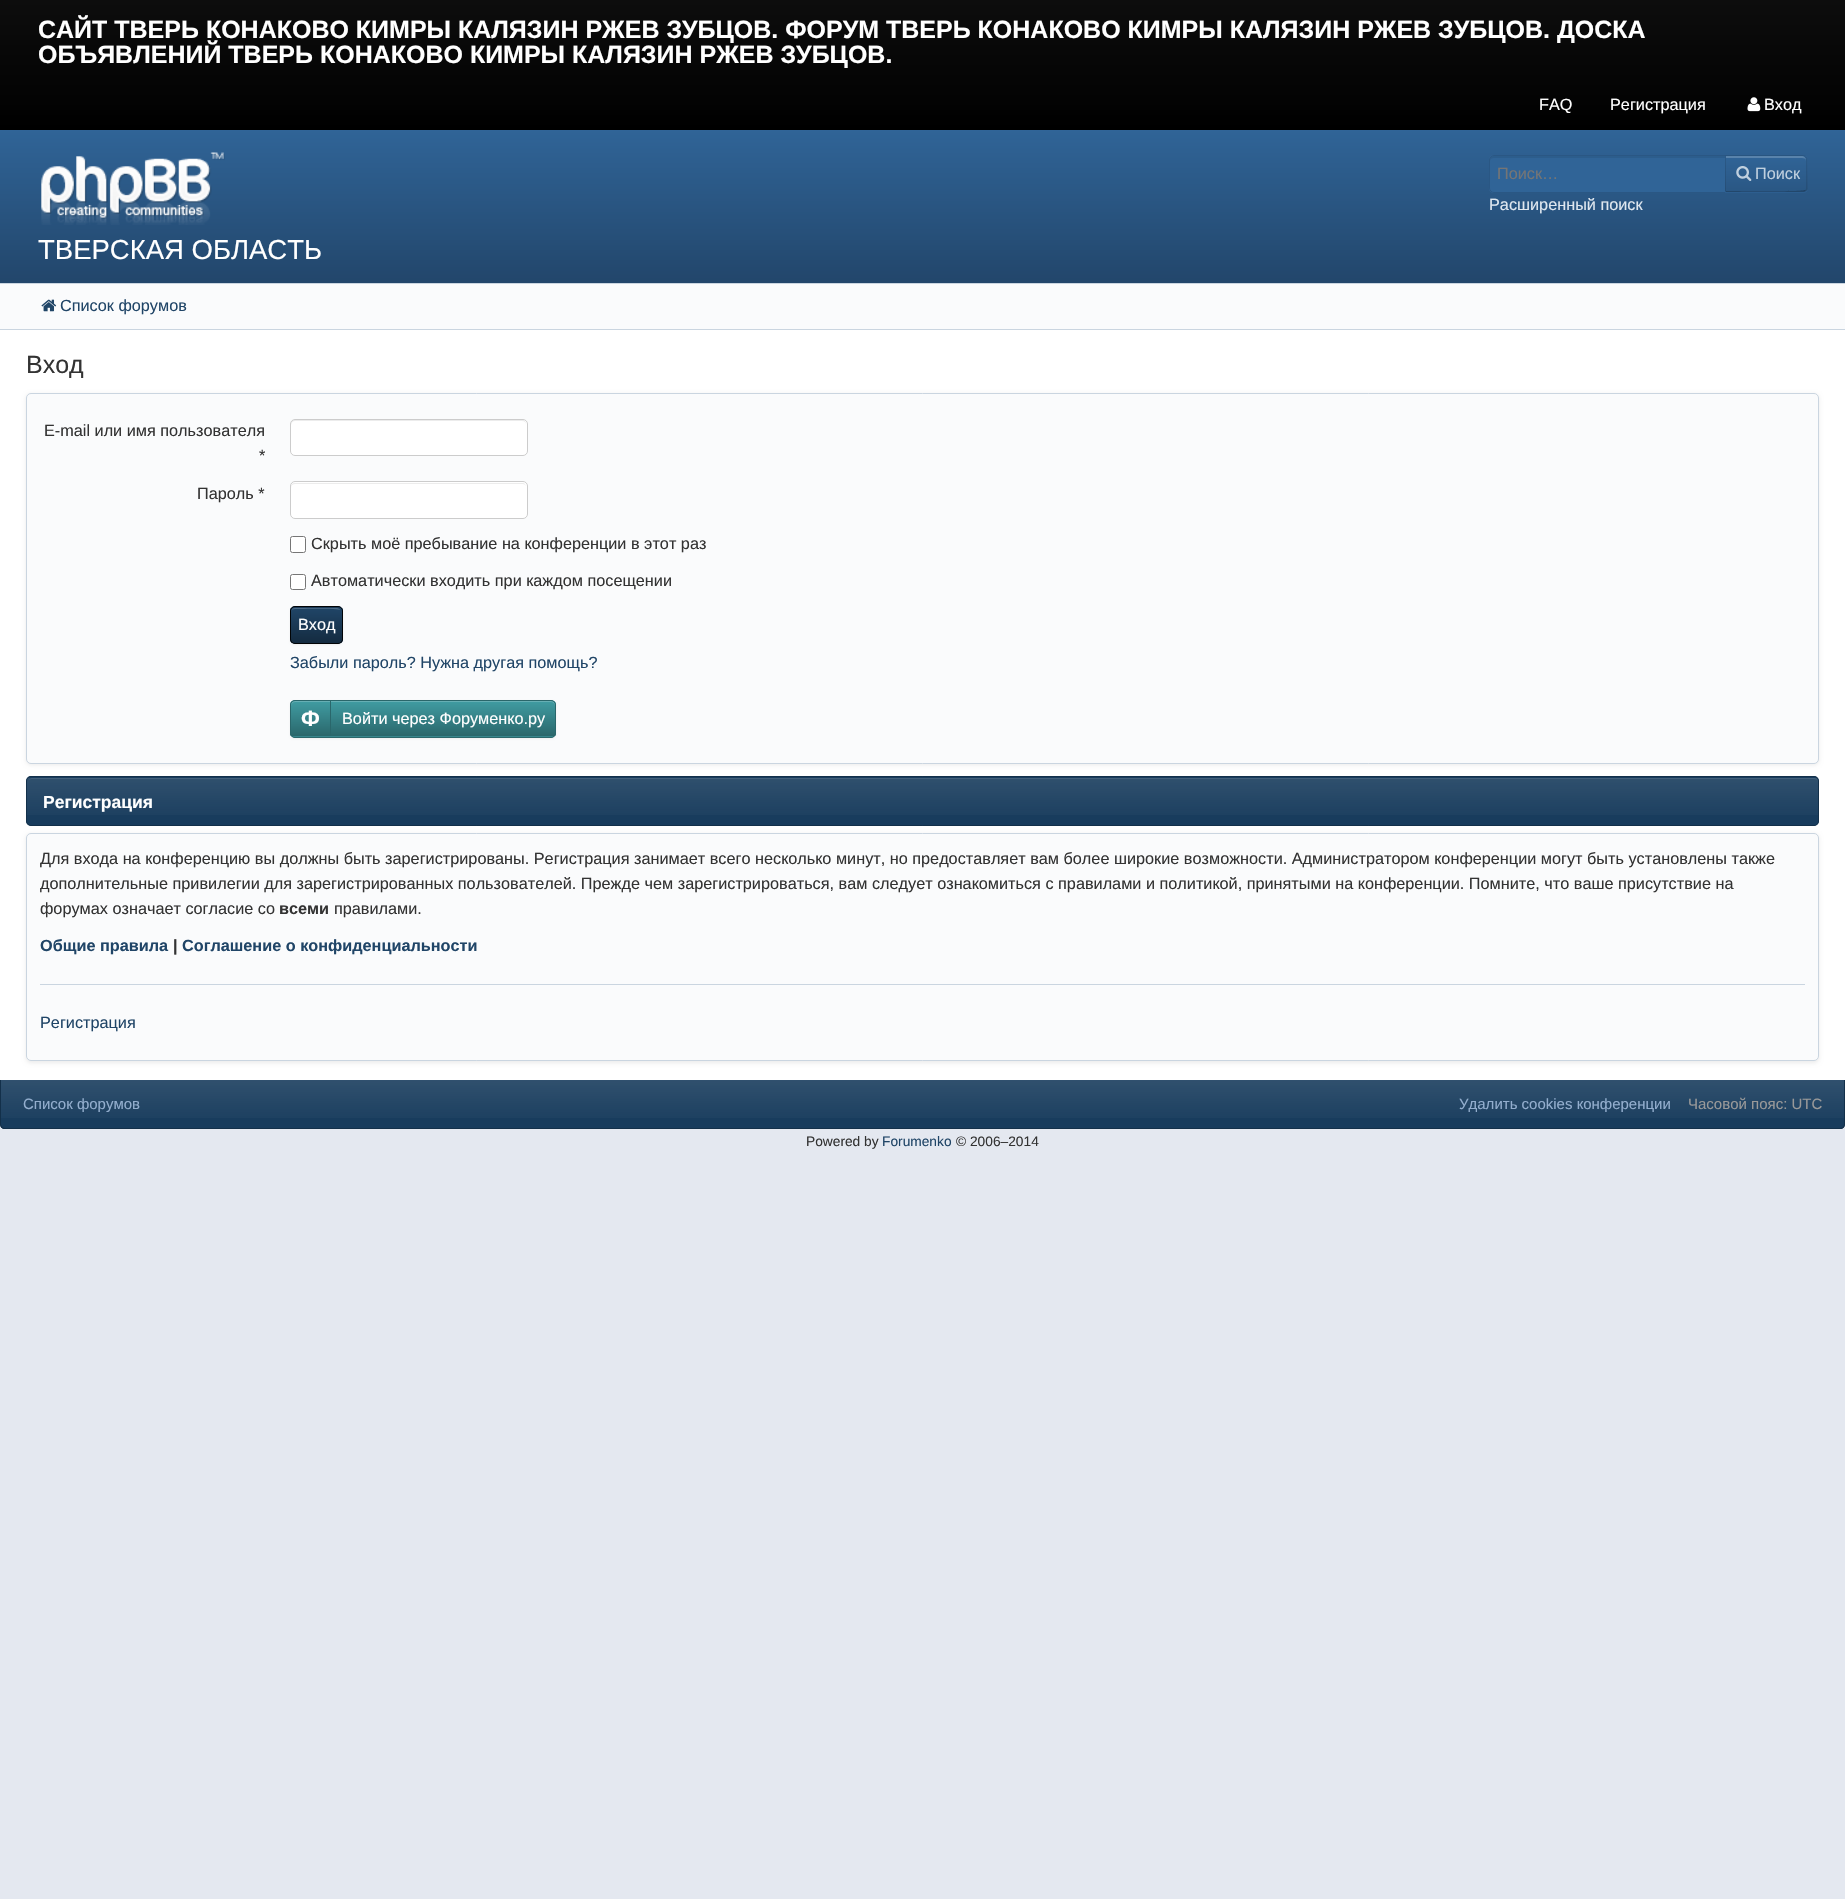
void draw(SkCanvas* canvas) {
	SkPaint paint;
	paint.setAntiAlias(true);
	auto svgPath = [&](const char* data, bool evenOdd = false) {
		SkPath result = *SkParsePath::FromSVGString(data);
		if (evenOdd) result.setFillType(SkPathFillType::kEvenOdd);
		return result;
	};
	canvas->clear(0xffe4e8f0);
	{
		const SkColor colors[] = {0xff0d0d0d, 0xff000000};
		const float stops[] = {0, 1};
		const SkPoint ends[] = {{923, 0}, {923, 130}};
		paint.setShader(SkGradientShader::MakeLinear(ends, colors, stops, 2, SkTileMode::kClamp));
		paint.setAlpha(255);
	}
	canvas->drawRect(SkRect::MakeXYWH(0, 0, 1845, 130), paint);
	SkFont f1(fontMgr->matchFamilyStyle("Liberation Sans", SkFontStyle::Bold()), 25);
	f1.setSubpixel(true);
	paint.setShader(nullptr);
	paint.setColor(0xffffffff);
	canvas->drawString("САЙТ ТВЕРЬ КОНАКОВО КИМРЫ КАЛЯЗИН РЖЕВ ЗУБЦОВ. ФОРУМ ТВЕРЬ КОНАКОВО КИМРЫ КАЛЯЗИН РЖЕВ ЗУБЦОВ. ДОСКА", 38, 38, f1, paint);
	canvas->drawString("ОБЪЯВЛЕНИЙ ТВЕРЬ КОНАКОВО КИМРЫ КАЛЯЗИН РЖЕВ ЗУБЦОВ.", 38, 63, f1, paint);
	SkFont f2(fontMgr->matchFamilyStyle("Liberation Sans", SkFontStyle::Normal()), 16.25);
	f2.setSubpixel(true);
	canvas->drawString("FAQ", 1539, 110, f2, paint);
	canvas->drawString("Регистрация", 1610, 110, f2, paint);
	canvas->drawImageRect(SkImages::DeferredFromEncodedData(SkData::MakeFromFileName("img1.png")), SkRect::MakeXYWH(1747, 97, 14, 15), SkSamplingOptions());
	canvas->drawString("Вход", 1764, 110, f2, paint);
	{
		const SkColor colors[] = {0xff306497, 0xff22466b};
		const float stops[] = {0, 1};
		const SkPoint ends[] = {{923, 130}, {923, 283}};
		paint.setShader(SkGradientShader::MakeLinear(ends, colors, stops, 2, SkTileMode::kClamp));
		paint.setAlpha(255);
	}
	canvas->drawRect(SkRect::MakeXYWH(0, 130, 1845, 153), paint);
	paint.setShader(nullptr);
	paint.setColor(0xff306497);
	canvas->drawPath(svgPath("M1494 155H1726V193H1494C1491 193 1489 191 1489 188V160C1489 157 1491 155 1494 155Z"), paint);
	paint.setColor(0xff2c5d8c);
	canvas->drawPath(svgPath("M1494 158H1725V156H1494C1491 156 1490 158 1490 161C1490 159 1492 158 1494 158Z"), paint);
	paint.setStroke(true);
	paint.setStrokeWidth(1);
	paint.setColor(0xff2a5784);
	canvas->drawPath(svgPath("M1494 155.5H1725.5V192.5H1494C1491.5 192.5 1489.5 190.5 1489.5 188V160C1489.5 157.5 1491.5 155.5 1494 155.5Z"), paint);
	paint.setStroke(false);
	paint.setColor(0xff757575);
	canvas->drawString("Поиск…", 1497, 179, f2, paint);
	paint.setColor(0xff2d5e8f);
	canvas->drawPath(svgPath("M1725 155H1803C1806 155 1808 157 1808 160V188C1808 191 1806 193 1803 193H1725Z"), paint);
	canvas->save();
	canvas->clipPath(svgPath("M1725 155H1803C1806 155 1808 157 1808 160V188C1808 191 1806 193 1803 193H1725Z"), true);
	{
		const SkColor colors[] = {0xff306497, 0xff2a5784};
		const float stops[] = {0, 1};
		const SkPoint ends[] = {{1766, 156}, {1766, 191}};
		paint.setShader(SkGradientShader::MakeLinear(ends, colors, stops, 2, SkTileMode::kClamp));
		paint.setAlpha(255);
	}
	canvas->drawRect(SkRect::MakeXYWH(1725, 156, 83, 35), paint);
	canvas->restore();
	paint.setShader(nullptr);
	paint.setColor(0xff5983ab);
	canvas->drawPath(svgPath("M1726 158H1802C1805 158 1806 159 1806 161V160C1806 158 1804 156 1802 156H1726Z"), paint);
	paint.setColor(0x1a000000);
	canvas->drawPath(svgPath("M1725 155L1726 156H1803L1805 157L1806 156C1805 156 1804 155 1802 155Z"), paint);
	canvas->drawPath(svgPath("M1807.5 189.5L1806 191L1805 190C1806 189.5 1806 189 1806 188V160C1806 159 1806 158 1805 157.5L1806 156.5L1807.5 158Z"), paint);
	paint.setColor(0x40000000);
	canvas->drawPath(svgPath("M1806 191C1805 192 1803 192 1802 192H1726V191C1735 191 1803 192 1805 190Z"), paint);
	paint.setColor(0x1a000000);
	canvas->drawPath(svgPath("M1726 156L1725 155V192H1725.5L1726.5 191H1726Z"), paint);
	canvas->drawImageRect(SkImages::DeferredFromEncodedData(SkData::MakeFromFileName("img2.png")), SkRect::MakeXYWH(1736, 166, 16, 15), SkSamplingOptions());
	paint.setColor(0xffc0d0df);
	canvas->drawString("Поиск", 1755, 179, f2, paint);
	paint.setColor(0xffdfe7ef);
	canvas->drawString("Расширенный поиск", 1489, 210, f2, paint);
	canvas->drawImageRect(SkImages::DeferredFromEncodedData(SkData::MakeFromFileName("img3.png")), SkRect::MakeXYWH(41, 152, 184, 73), SkSamplingOptions());
	SkFont f3(fontMgr->matchFamilyStyle("Liberation Sans", SkFontStyle::Normal()), 27.5);
	f3.setSubpixel(true);
	paint.setColor(0xffffffff);
	canvas->drawString("ТВЕРСКАЯ ОБЛАСТЬ", 38, 259, f3, paint);
	paint.setColor(0xfffafbfc);
	canvas->drawRect(SkRect::MakeXYWH(0, 284, 1845, 45), paint);
	paint.setColor(0xffcad5e0);
	canvas->drawRect(SkRect::MakeXYWH(0, 283, 1845, 1), paint);
	canvas->drawRect(SkRect::MakeXYWH(0, 329, 1845, 1), paint);
	canvas->drawImageRect(SkImages::DeferredFromEncodedData(SkData::MakeFromFileName("img4.png")), SkRect::MakeXYWH(41, 299, 16, 13), SkSamplingOptions());
	paint.setColor(0xff204567);
	canvas->drawString("Список форумов", 60, 311, f2, paint);
	paint.setColor(0xffffffff);
	canvas->drawRect(SkRect::MakeXYWH(0, 330, 1845, 750), paint);
	SkFont f4(fontMgr->matchFamilyStyle("Liberation Sans", SkFontStyle::Normal()), 25);
	f4.setSubpixel(true);
	paint.setColor(0xff333333);
	canvas->drawString("Вход", 26, 373, f4, paint);
	paint.setColor(0x14000000);
	paint.setMaskFilter(SkMaskFilter::MakeBlur(kNormal_SkBlurStyle, 2));
	canvas->drawRoundRect(SkRect::MakeXYWH(26, 394, 1793, 371), 5, 5, paint);
	paint.setMaskFilter(nullptr);
	paint.setColor(0xfffafbfc);
	canvas->drawRoundRect(SkRect::MakeXYWH(26.5, 393.5, 1792, 370), 4.5, 4.5, paint);
	paint.setStroke(true);
	paint.setColor(0xffcad5e0);
	canvas->drawRoundRect(SkRect::MakeXYWH(26.5, 393.5, 1792, 370), 4.5, 4.5, paint);
	paint.setStroke(false);
	paint.setColor(0xff333333);
	canvas->drawString("E-mail или имя пользователя", 44, 436, f2, paint);
	canvas->drawString("*", 259, 461, f2, paint);
	paint.setColor(0xffffffff);
	canvas->drawRoundRect(SkRect::MakeXYWH(290, 419, 238, 37), 5, 5, paint);
	paint.setColor(0xffececec);
	canvas->drawPath(svgPath("M295 421H522C525 421 526 423 526 425C526 422 525 420 522 420H295C292 420 291 422 291 425C291 423 293 421 295 421Z"), paint);
	paint.setStroke(true);
	paint.setColor(0xffcccccc);
	canvas->drawRoundRect(SkRect::MakeXYWH(290.5, 419.5, 237, 36), 4.5, 4.5, paint);
	paint.setStroke(false);
	paint.setColor(0xff333333);
	canvas->drawString("Пароль *", 197, 499, f2, paint);
	paint.setColor(0xffffffff);
	canvas->drawRoundRect(SkRect::MakeXYWH(290, 481, 238, 38), 5, 5, paint);
	paint.setColor(0xffececec);
	canvas->drawPath(svgPath("M295 484H522C525 484 526 485 526 488C526 485 525 483 522 483H295C292 483 291 485 291 488C291 485 293 484 295 484Z"), paint);
	paint.setStroke(true);
	paint.setColor(0xffcccccc);
	canvas->drawRoundRect(SkRect::MakeXYWH(290.5, 481.5, 237, 37), 4.5, 4.5, paint);
	paint.setStroke(false);
	paint.setColor(0xffffffff);
	canvas->drawRoundRect(SkRect::MakeXYWH(290.5, 536.5, 15, 16), 2, 2, paint);
	paint.setStroke(true);
	paint.setColor(0xff767676);
	canvas->drawRoundRect(SkRect::MakeXYWH(290.5, 536.5, 15, 16), 2, 2, paint);
	paint.setStroke(false);
	paint.setColor(0xff333333);
	canvas->drawString("Скрыть моё пребывание на конференции в этот раз", 311, 549, f2, paint);
	paint.setColor(0xffffffff);
	canvas->drawRoundRect(SkRect::MakeXYWH(290.5, 574.5, 15, 15), 2, 2, paint);
	paint.setStroke(true);
	paint.setColor(0xff767676);
	canvas->drawRoundRect(SkRect::MakeXYWH(290.5, 574.5, 15, 15), 2, 2, paint);
	paint.setStroke(false);
	paint.setColor(0xff333333);
	canvas->drawString("Автоматически входить при каждом посещении", 311, 586, f2, paint);
	paint.setColor(0x0d000000);
	paint.setMaskFilter(SkMaskFilter::MakeBlur(kNormal_SkBlurStyle, 1));
	canvas->drawRoundRect(SkRect::MakeXYWH(290, 608, 53, 37), 5, 5, paint);
	paint.setMaskFilter(nullptr);
	paint.setColor(0xff1b3a57);
	canvas->drawRoundRect(SkRect::MakeXYWH(290, 606, 53, 38), 5, 5, paint);
	canvas->save();
	canvas->clipPath(svgPath("M295 606H338C341 606 343 608 343 611V639C343 642 341 644 338 644H295C292 644 290 642 290 639V611C290 608 292 606 295 606Z"), true);
	{
		const SkColor colors[] = {0xff204567, 0xff142b40};
		const float stops[] = {0, 1};
		const SkPoint ends[] = {{316, 608}, {316, 643}};
		paint.setShader(SkGradientShader::MakeLinear(ends, colors, stops, 2, SkTileMode::kClamp));
		paint.setAlpha(255);
	}
	canvas->drawRect(SkRect::MakeXYWH(290, 608, 53, 35), paint);
	canvas->restore();
	paint.setShader(nullptr);
	paint.setColor(0xff4d6a85);
	canvas->drawPath(svgPath("M295 609C300 609 339 608 340 610C340 609 338 608 337 608H295C293 608 291 610 291 612C291 610 293 609 295 609Z"), paint);
	paint.setStroke(true);
	paint.setColor(0xff020406);
	canvas->drawRoundRect(SkRect::MakeXYWH(290.5, 606.5, 52, 37), 4.5, 4.5, paint);
	paint.setStroke(false);
	paint.setColor(0xffffffff);
	canvas->drawString("Вход", 298, 630, f2, paint);
	paint.setColor(0xff204567);
	canvas->drawString("Забыли пароль? Нужна другая помощь?", 290, 668, f2, paint);
	paint.setColor(0x0d000000);
	paint.setMaskFilter(SkMaskFilter::MakeBlur(kNormal_SkBlurStyle, 1));
	canvas->drawRoundRect(SkRect::MakeXYWH(290, 701, 266, 38), 5, 5, paint);
	paint.setMaskFilter(nullptr);
	paint.setColor(0xff37868c);
	canvas->drawRoundRect(SkRect::MakeXYWH(290, 700, 266, 38), 5, 5, paint);
	canvas->save();
	canvas->clipPath(svgPath("M295 700H551C554 700 556 702 556 705V733C556 736 554 738 551 738H295C292 738 290 736 290 733V705C290 702 292 700 295 700Z"), true);
	{
		const SkColor colors[] = {0xff409ca2, 0xff2a676b};
		const float stops[] = {0, 1};
		const SkPoint ends[] = {{423, 701}, {423, 736}};
		paint.setShader(SkGradientShader::MakeLinear(ends, colors, stops, 2, SkTileMode::kClamp));
		paint.setAlpha(255);
	}
	canvas->drawRect(SkRect::MakeXYWH(290, 701, 266, 35), paint);
	canvas->restore();
	paint.setShader(nullptr);
	paint.setColor(0x33ffffff);
	canvas->drawPath(svgPath("M295 702H551C553 702 555 704 555 706V705C555 703 553 701 551 701H295C293 701 291 703 291 705V706C291 704 293 702 295 702Z"), paint);
	paint.setStroke(true);
	paint.setColor(0xff2a676b);
	canvas->drawRoundRect(SkRect::MakeXYWH(290.5, 700.5, 265, 37), 4.5, 4.5, paint);
	SkFont f5(fontMgr->matchFamilyStyle("Liberation Sans", SkFontStyle::Bold()), 22);
	f5.setSubpixel(true);
	paint.setStroke(false);
	paint.setColor(0xffffffff);
	canvas->drawString("Ф", 301, 726, f5, paint);
	paint.setColor(0xff2a676b);
	canvas->drawRect(SkRect::MakeXYWH(330, 701, 1, 35), paint);
	paint.setColor(0xffffffff);
	canvas->drawString("Войти через Форуменко.ру", 342, 724, f2, paint);
	paint.setColor(0xff183c5d);
	canvas->drawRoundRect(SkRect::MakeXYWH(26, 776, 1793, 50), 5, 5, paint);
	{
		const SkColor colors[] = {0x1affffff, 0x00ffffff};
		const float stops[] = {0, 1};
		const SkPoint ends[] = {{923, 777}, {923, 825}};
		paint.setShader(SkGradientShader::MakeLinear(ends, colors, stops, 2, SkTileMode::kClamp));
		paint.setAlpha(255);
	}
	canvas->drawRect(SkRect::MakeXYWH(26, 778, 1793, 37), paint);
	paint.setShader(nullptr);
	paint.setColor(0xff43617b);
	canvas->drawPath(svgPath("M31 779H1814C1816 779 1818 780 1818 782C1818 780 1816 778 1814 778H32C31 778 29 779 29 780Z"), paint);
	paint.setStroke(true);
	paint.setColor(0xff13304a);
	canvas->drawRoundRect(SkRect::MakeXYWH(26.5, 776.5, 1792, 49), 4.5, 4.5, paint);
	SkFont f6(fontMgr->matchFamilyStyle("Liberation Sans", SkFontStyle::Bold()), 17.5);
	f6.setSubpixel(true);
	paint.setStroke(false);
	paint.setColor(0xffffffff);
	canvas->drawString("Регистрация", 43, 808, f6, paint);
	paint.setColor(0x14000000);
	paint.setMaskFilter(SkMaskFilter::MakeBlur(kNormal_SkBlurStyle, 2));
	canvas->drawRoundRect(SkRect::MakeXYWH(26, 834, 1793, 229), 5, 5, paint);
	paint.setMaskFilter(nullptr);
	paint.setColor(0xfffafbfc);
	canvas->drawRoundRect(SkRect::MakeXYWH(26.5, 833.5, 1792, 227), 4.5, 4.5, paint);
	paint.setStroke(true);
	paint.setColor(0xffcad5e0);
	canvas->drawRoundRect(SkRect::MakeXYWH(26.5, 833.5, 1792, 227), 4.5, 4.5, paint);
	paint.setStroke(false);
	paint.setColor(0xff333333);
	canvas->drawString("Для входа на конференцию вы должны быть зарегистрированы. Регистрация занимает всего несколько минут, но предоставляет вам более широкие возможности. Администратором конференции могут быть установлены также", 40, 864, f2, paint);
	canvas->drawString("дополнительные привилегии для зарегистрированных пользователей. Прежде чем зарегистрироваться, вам следует ознакомиться с правилами и политикой, принятыми на конференции. Помните, что ваше присутствие на", 40, 889, f2, paint);
	canvas->drawString("форумах означает согласие со", 40, 914, f2, paint);
	SkFont f7(fontMgr->matchFamilyStyle("Liberation Sans", SkFontStyle::Bold()), 16.25);
	f7.setSubpixel(true);
	canvas->drawString("всеми", 279, 914, f7, paint);
	canvas->drawString("правилами.", 334, 914, f2, paint);
	paint.setColor(0xff204567);
	canvas->drawString("Общие правила", 40, 951, f7, paint);
	paint.setColor(0xff333333);
	canvas->drawString("|", 173, 951, f7, paint);
	paint.setColor(0xff204567);
	canvas->drawString("Соглашение о конфиденциальности", 182, 951, f7, paint);
	paint.setColor(0xffcad5e0);
	canvas->drawRect(SkRect::MakeXYWH(40, 984, 1765, 1), paint);
	paint.setColor(0xff204567);
	canvas->drawString("Регистрация", 40, 1028, f2, paint);
	paint.setColor(0xff183c5d);
	canvas->drawPath(svgPath("M0 1080H1845V1124C1845 1127 1843 1129 1840 1129H5C2 1129 0 1127 0 1124Z"), paint);
	{
		const SkColor colors[] = {0x1affffff, 0x00ffffff};
		const float stops[] = {0, 1};
		const SkPoint ends[] = {{923, 1080}, {923, 1128}};
		paint.setShader(SkGradientShader::MakeLinear(ends, colors, stops, 2, SkTileMode::kClamp));
		paint.setAlpha(255);
	}
	canvas->drawRect(SkRect::MakeXYWH(1, 1080, 1843, 38), paint);
	paint.setShader(nullptr);
	paint.setColor(0xff13304a);
	canvas->drawPath(svgPath("M0 1080H1845V1124C1845 1127 1843 1129 1840 1129H5C2 1129 0 1127 0 1124ZM1 1080H1844V1124C1844 1126 1842 1128 1840 1128H5C3 1128 1 1126 1 1124Z", true), paint);
	SkFont f8(fontMgr->matchFamilyStyle("Liberation Sans", SkFontStyle::Normal()), 15);
	f8.setSubpixel(true);
	paint.setColor(0xff93aece);
	canvas->drawString("Список форумов", 23, 1109, f8, paint);
	canvas->drawString("Удалить cookies конференции", 1459, 1109, f8, paint);
	paint.setColor(0xff999999);
	canvas->drawString("Часовой пояс: UTC", 1688, 1109, f8, paint);
	SkFont f9(fontMgr->matchFamilyStyle("Liberation Sans", SkFontStyle::Normal()), 13.75);
	f9.setSubpixel(true);
	paint.setColor(0xff333333);
	canvas->drawString("Powered by", 806, 1146, f9, paint);
	paint.setColor(0xff204567);
	canvas->drawString("Forumenko", 882, 1146, f9, paint);
	paint.setColor(0xff333333);
	canvas->drawString("© 2006–2014", 956, 1146, f9, paint);
}
